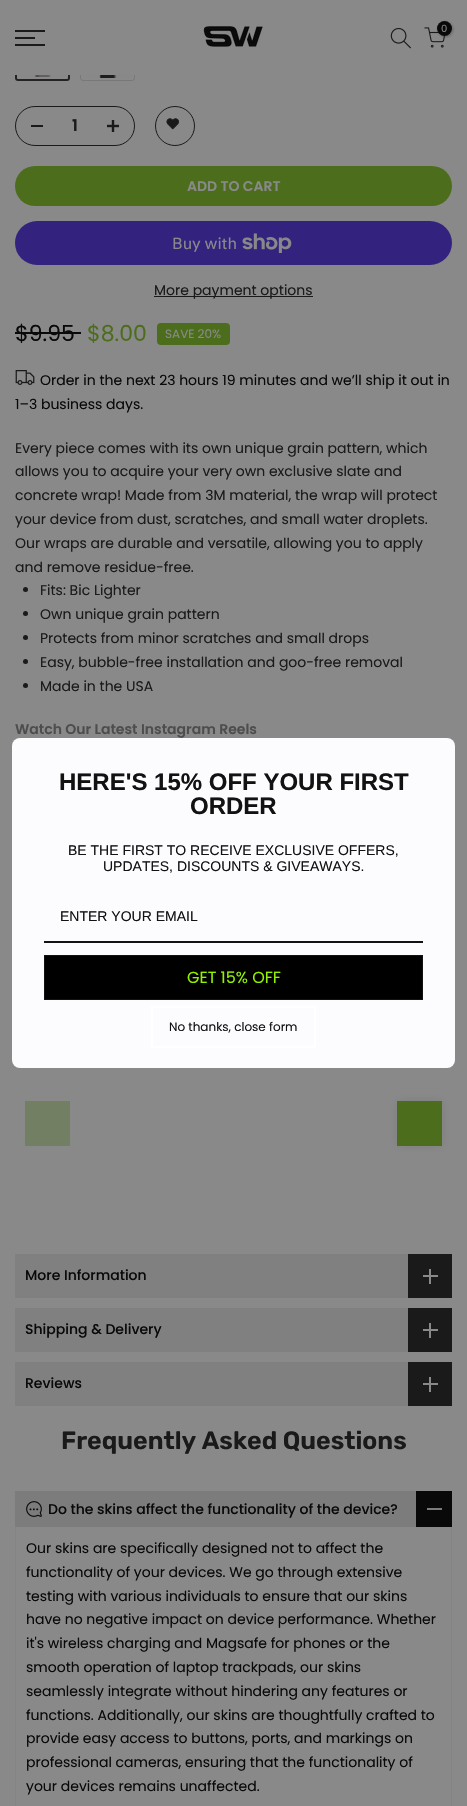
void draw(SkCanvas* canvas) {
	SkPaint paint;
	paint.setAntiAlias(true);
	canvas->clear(0xff898989);
	canvas->drawImageRect(SkImages::DeferredFromEncodedData(SkData::MakeFromFileName("img4.png")), SkRect::MakeXYWH(17, 75, 51, 4), SkSamplingOptions());
	paint.setStroke(true);
	paint.setStrokeWidth(2);
	paint.setColor(0xff898989);
	canvas->drawRect(SkRect::MakeXYWH(18, 29, 49, 49), paint);
	paint.setColor(0xff232323);
	canvas->drawRoundRect(SkRect::MakeXYWH(16, 27, 53, 53), 2, 2, paint);
	canvas->drawImageRect(SkImages::DeferredFromEncodedData(SkData::MakeFromFileName("img5.png")), SkRect::MakeXYWH(81, 75, 53, 5), SkSamplingOptions());
	paint.setColor(0xff898989);
	canvas->drawRoundRect(SkRect::MakeXYWH(82, 28, 51, 51), 1, 1, paint);
	paint.setStrokeWidth(1);
	paint.setColor(0xff787878);
	canvas->drawRoundRect(SkRect::MakeXYWH(80.5, 26.5, 54, 54), 2.5, 2.5, paint);
	paint.setStroke(false);
	paint.setColor(0xff898989);
	canvas->drawRect(SkRect::MakeXYWH(15, 26, 120, 49), paint);
	paint.setColor(0xff1a1a1a);
	canvas->drawRect(SkRect::MakeXYWH(15, 30, 30, 2), paint);
	canvas->drawRect(SkRect::MakeXYWH(15, 37, 20, 2), paint);
	canvas->drawRect(SkRect::MakeXYWH(15, 44, 30, 2), paint);
	canvas->drawImageRect(SkImages::DeferredFromEncodedData(SkData::MakeFromFileName("img1.png")), SkRect::MakeXYWH(203, 26, 60, 21), SkSamplingOptions());
	canvas->drawImageRect(SkImages::DeferredFromEncodedData(SkData::MakeFromFileName("img2.png")), SkRect::MakeXYWH(390, 27, 21, 22), SkSamplingOptions());
	canvas->drawImageRect(SkImages::DeferredFromEncodedData(SkData::MakeFromFileName("img3.png")), SkRect::MakeXYWH(424, 27, 22, 21), SkSamplingOptions());
	paint.setColor(0x4d090909);
	paint.setMaskFilter(SkMaskFilter::MakeBlur(kNormal_SkBlurStyle, 1.5));
	canvas->drawRoundRect(SkRect::MakeXYWH(438, 22, 15, 15), 7.5, 7.5, paint);
	paint.setMaskFilter(nullptr);
	paint.setColor(0xff090909);
	canvas->drawCircle(444.5, 28.5, 7.5, paint);
	SkFont f1(fontMgr->matchFamilyStyle("Poppins", SkFontStyle::Normal()), 10);
	f1.setSubpixel(true);
	paint.setColor(0xff898989);
	canvas->drawString("0", 441, 32, f1, paint);
	paint.setStroke(true);
	paint.setColor(0xff1a1a1a);
	canvas->drawRoundRect(SkRect::MakeXYWH(15.5, 106.5, 119, 39), 19.5, 19.5, paint);
	paint.setStroke(false);
	canvas->drawRect(SkRect::MakeXYWH(31, 125, 12, 2), paint);
	SkFont f2(fontMgr->matchFamilyStyle("Poppins", SkFontStyle(600, SkFontStyle::kNormal_Width, SkFontStyle::kUpright_Slant)), 16);
	f2.setSubpixel(true);
	canvas->drawString("1", 72, 131, f2, paint);
	canvas->drawImageRect(SkImages::DeferredFromEncodedData(SkData::MakeFromFileName("img6.png")), SkRect::MakeXYWH(107, 120, 12, 12), SkSamplingOptions());
	paint.setStroke(true);
	canvas->drawCircle(175, 126, 19.5, paint);
	canvas->drawImageRect(SkImages::DeferredFromEncodedData(SkData::MakeFromFileName("img7.png")), SkRect::MakeXYWH(166, 118, 13, 12), SkSamplingOptions());
	paint.setStroke(false);
	paint.setColor(0xff4c6d1c);
	canvas->drawRoundRect(SkRect::MakeXYWH(15, 166, 437, 40), 20, 20, paint);
	SkFont f3(fontMgr->matchFamilyStyle("Poppins", SkFontStyle(600, SkFontStyle::kNormal_Width, SkFontStyle::kUpright_Slant)), 14);
	f3.setSubpixel(true);
	paint.setColor(0xff898989);
	canvas->drawString("ADD TO CART", 187, 191, f3, paint);
	paint.setColor(0xff33237f);
	canvas->drawRoundRect(SkRect::MakeXYWH(15, 221, 437, 44), 22, 22, paint);
	SkFont f4(fontMgr->matchFamilyStyle("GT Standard", SkFontStyle::Normal()), 16);
	f4.setSubpixel(true);
	paint.setColor(0xff898989);
	canvas->drawString("Buy with", 172, 249, f4, paint);
	canvas->drawImageRect(SkImages::DeferredFromEncodedData(SkData::MakeFromFileName("img8.png")), SkRect::MakeXYWH(242, 233, 50, 20), SkSamplingOptions());
	paint.setColor(0xff1a1a1a);
	canvas->drawRect(SkRect::MakeXYWH(154, 296, 159, 1), paint);
	SkFont f5(fontMgr->matchFamilyStyle("Poppins", SkFontStyle::Normal()), 14);
	f5.setSubpixel(true);
	canvas->drawString("More payment options", 154, 295, f5, paint);
	SkFont f6(fontMgr->matchFamilyStyle("Poppins", SkFontStyle::Normal()), 22);
	f6.setSubpixel(true);
	paint.setColor(0xff090909);
	canvas->drawString("$9.95", 15, 341, f6, paint);
	canvas->drawRect(SkRect::MakeXYWH(15, 332, 66, 2), paint);
	paint.setColor(0xff4c6d1c);
	canvas->drawString("$8.00", 87, 341, f6, paint);
	canvas->drawRoundRect(SkRect::MakeXYWH(157, 323, 73, 22), 4, 4, paint);
	SkFont f7(fontMgr->matchFamilyStyle("Poppins", SkFontStyle::Normal()), 12);
	f7.setSubpixel(true);
	paint.setColor(0xff898989);
	canvas->drawString("SAVE 20%", 165, 338, f7, paint);
	canvas->drawImageRect(SkImages::DeferredFromEncodedData(SkData::MakeFromFileName("img9.png")), SkRect::MakeXYWH(15, 370, 20, 15), SkSamplingOptions());
	paint.setColor(0xff090909);
	canvas->drawString("Order in the next 23 hours 19 minutes and we’ll ship it out in", 40, 385, f5, paint);
	canvas->drawString("1–3 business days.", 15, 409, f5, paint);
	paint.setColor(0xff1a1a1a);
	canvas->drawString("Every piece comes with its own unique grain pattern, which", 15, 453, f5, paint);
	canvas->drawString("allows you to acquire your very own exclusive slate and", 15, 476, f5, paint);
	canvas->drawString("concrete wrap! Made from 3M material, the wrap will protect", 15, 500, f5, paint);
	canvas->drawString("your device from dust, scratches, and small water droplets.", 15, 524, f5, paint);
	canvas->drawString("Our wraps are durable and versatile, allowing you to apply", 15, 548, f5, paint);
	canvas->drawString("and remove residue-free.", 15, 572, f5, paint);
	canvas->drawCircle(25.5, 589.5, 2.5, paint);
	canvas->drawString("Fits: Bic Lighter", 40, 595, f5, paint);
	canvas->drawCircle(25.5, 613.5, 2.5, paint);
	canvas->drawString("Own unique grain pattern", 40, 619, f5, paint);
	canvas->drawCircle(25.5, 637.5, 2.5, paint);
	canvas->drawString("Protects from minor scratches and small drops", 40, 643, f5, paint);
	canvas->drawCircle(25.5, 661.5, 2.5, paint);
	canvas->drawString("Easy, bubble-free installation and goo-free removal", 40, 667, f5, paint);
	canvas->drawCircle(25.5, 685.5, 2.5, paint);
	canvas->drawString("Made in the USA", 40, 691, f5, paint);
	paint.setColor(0xff4d4d4d);
	canvas->drawString("Watch Our Latest Instagram Reels", 15, 734, f3, paint);
	paint.setColor(0xff737f63);
	canvas->drawRect(SkRect::MakeXYWH(25, 1101, 45, 45), paint);
	paint.setColor(0x1a090909);
	paint.setMaskFilter(SkMaskFilter::MakeBlur(kNormal_SkBlurStyle, 5));
	canvas->drawRect(SkRect::MakeXYWH(397, 1101, 45, 45), paint);
	paint.setMaskFilter(nullptr);
	paint.setColor(0xff4c6d1c);
	canvas->drawRect(SkRect::MakeXYWH(397, 1101, 45, 45), paint);
	paint.setColor(0xff808080);
	canvas->drawRect(SkRect::MakeXYWH(15, 1254, 393, 44), paint);
	SkFont f8(fontMgr->matchFamilyStyle("Poppins", SkFontStyle(500, SkFontStyle::kNormal_Width, SkFontStyle::kUpright_Slant)), 14);
	f8.setSubpixel(true);
	paint.setColor(0xff090909);
	canvas->drawString("More Information", 25, 1280, f8, paint);
	paint.setColor(0xff1a1a1a);
	canvas->drawRect(SkRect::MakeXYWH(408, 1254, 44, 44), paint);
	paint.setColor(0xff898989);
	canvas->drawRect(SkRect::MakeXYWH(429, 1269, 2, 15), paint);
	canvas->drawRect(SkRect::MakeXYWH(423, 1275, 15, 2), paint);
	paint.setColor(0xff808080);
	canvas->drawRect(SkRect::MakeXYWH(15, 1308, 393, 44), paint);
	paint.setColor(0xff090909);
	canvas->drawString("Shipping & Delivery", 25, 1334, f8, paint);
	paint.setColor(0xff1a1a1a);
	canvas->drawRect(SkRect::MakeXYWH(408, 1308, 44, 44), paint);
	paint.setColor(0xff898989);
	canvas->drawRect(SkRect::MakeXYWH(429, 1323, 2, 15), paint);
	canvas->drawRect(SkRect::MakeXYWH(423, 1329, 15, 2), paint);
	paint.setColor(0xff808080);
	canvas->drawRect(SkRect::MakeXYWH(15, 1362, 393, 44), paint);
	paint.setColor(0xff090909);
	canvas->drawString("Reviews", 25, 1388, f8, paint);
	paint.setColor(0xff1a1a1a);
	canvas->drawRect(SkRect::MakeXYWH(408, 1362, 44, 44), paint);
	paint.setColor(0xff898989);
	canvas->drawRect(SkRect::MakeXYWH(429, 1377, 2, 15), paint);
	canvas->drawRect(SkRect::MakeXYWH(423, 1383, 15, 2), paint);
	SkFont f9(fontMgr->matchFamilyStyle("Rubik", SkFontStyle(600, SkFontStyle::kNormal_Width, SkFontStyle::kUpright_Slant)), 25);
	f9.setSubpixel(true);
	paint.setColor(0xff1a1a1a);
	canvas->drawString("Frequently Asked Questions", 61, 1449, f9, paint);
	paint.setColor(0xff7c7c7d);
	canvas->drawRect(SkRect::MakeXYWH(15, 1491, 401, 36), paint);
	canvas->drawImageRect(SkImages::DeferredFromEncodedData(SkData::MakeFromFileName("img10.png")), SkRect::MakeXYWH(26, 1501, 16, 16), SkSamplingOptions());
	paint.setColor(0xff090909);
	canvas->drawString("Do the skins affect the functionality of the device?", 48, 1514, f8, paint);
	canvas->drawRect(SkRect::MakeXYWH(416, 1491, 36, 36), paint);
	paint.setColor(0xff7c7c7d);
	canvas->drawRect(SkRect::MakeXYWH(427, 1508, 15, 2), paint);
	paint.setColor(0xff848484);
	canvas->drawRect(SkRect::MakeXYWH(451, 1527, 1, 279), paint);
	canvas->drawRect(SkRect::MakeXYWH(15, 1527, 1, 279), paint);
	paint.setColor(0xff090909);
	canvas->drawString("Our skins are specifically designed not to affect the", 26, 1553, f5, paint);
	canvas->drawString("functionality of your devices. We go through extensive", 26, 1577, f5, paint);
	canvas->drawString("testing with various individuals to ensure that our skins", 26, 1601, f5, paint);
	canvas->drawString("have no negative impact on device performance. Whether", 26, 1624, f5, paint);
	canvas->drawString("it's wireless charging and Magsafe for phones or the", 26, 1648, f5, paint);
	canvas->drawString("smooth operation of laptop trackpads, our skins", 26, 1672, f5, paint);
	canvas->drawString("seamlessly integrate without hindering any features or", 26, 1696, f5, paint);
	canvas->drawString("functions. Additionally, our skins are thoughtfully crafted to", 26, 1720, f5, paint);
	canvas->drawString("provide easy access to buttons, ports, and markings on", 26, 1743, f5, paint);
	canvas->drawString("professional cameras, ensuring that the functionality of", 26, 1767, f5, paint);
	canvas->drawString("your devices remains unaffected.", 26, 1791, f5, paint);
	paint.setColor(0xfffcfcff);
	canvas->drawRoundRect(SkRect::MakeXYWH(12, 738, 443, 330), 8, 8, paint);
	SkFont f10(fontMgr->matchFamilyStyle("Liberation Sans", SkFontStyle::Bold()), 24);
	f10.setSubpixel(true);
	paint.setColor(0xff121212);
	canvas->drawString("HERE'S 15% OFF YOUR FIRST", 59, 790, f10, paint);
	canvas->drawString("ORDER", 190, 814, f10, paint);
	SkFont f11(fontMgr->matchFamilyStyle("Liberation Sans", SkFontStyle::Normal()), 14);
	f11.setSubpixel(true);
	canvas->drawString("BE THE FIRST TO RECEIVE EXCLUSIVE OFFERS,", 68, 855, f11, paint);
	canvas->drawString("UPDATES, DISCOUNTS & GIVEAWAYS.", 103, 871, f11, paint);
	canvas->drawRect(SkRect::MakeXYWH(44, 941, 379, 2), paint);
	canvas->drawString("ENTER YOUR EMAIL", 60, 921, f11, paint);
	paint.setColor(0xff000000);
	canvas->drawRect(SkRect::MakeXYWH(44.5, 955.5, 378, 44), paint);
	paint.setStroke(true);
	paint.setColor(0xff121212);
	canvas->drawRect(SkRect::MakeXYWH(44.5, 955.5, 378, 44), paint);
	SkFont f12(fontMgr->matchFamilyStyle("Poppins", SkFontStyle::Normal()), 16);
	f12.setSubpixel(true);
	paint.setStroke(false);
	paint.setColor(0xff91f200);
	canvas->drawString("GET 15% OFF", 187, 983, f12, paint);
	paint.setStroke(true);
	paint.setStrokeWidth(2);
	paint.setColor(0xffffffff);
	canvas->drawRect(SkRect::MakeXYWH(152, 1007, 163, 40), paint);
	paint.setStroke(false);
	paint.setColor(0xff121212);
	canvas->drawString("No thanks, close form", 169, 1031, f7, paint);
}
